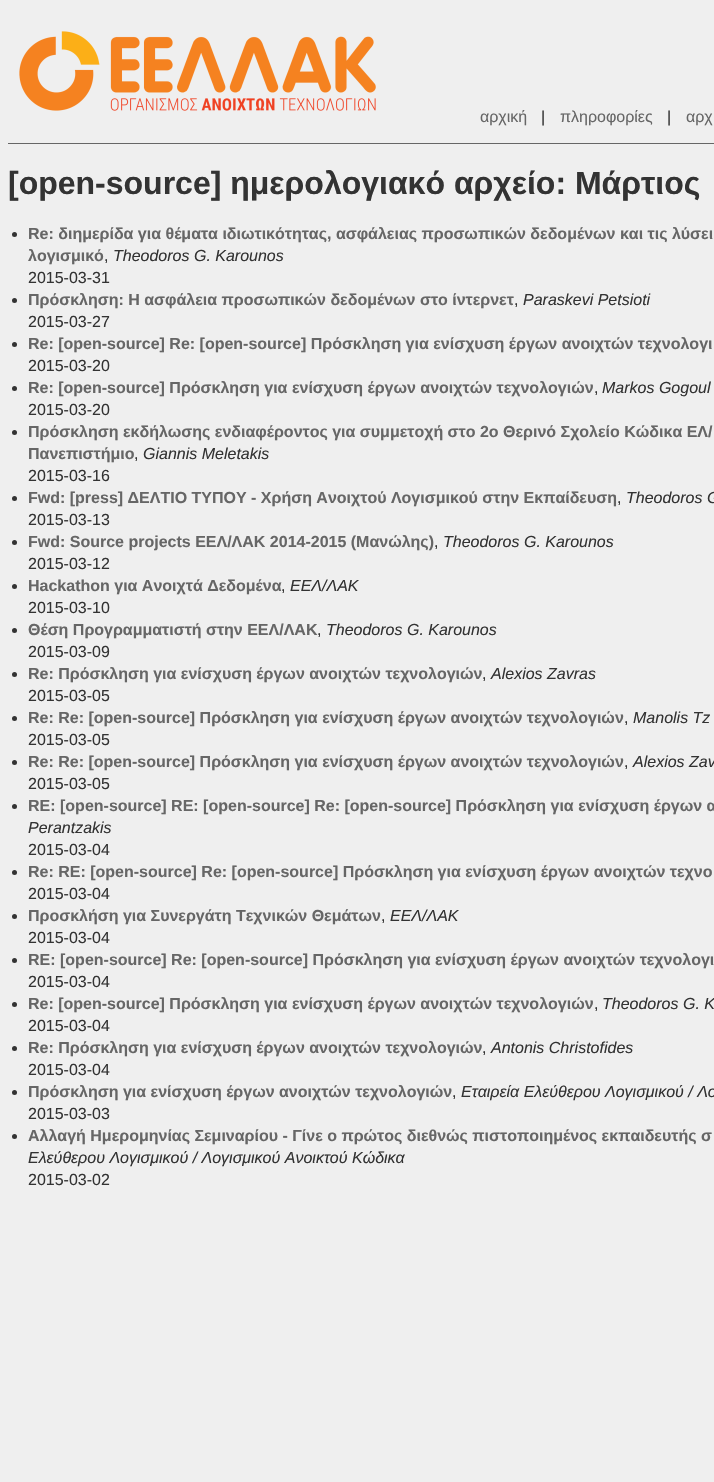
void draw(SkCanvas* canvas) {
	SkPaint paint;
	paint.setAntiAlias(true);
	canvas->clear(0xffefefef);
	paint.setColor(0xff666666);
	canvas->drawRect(SkRect::MakeXYWH(8, 143, 706, 1), paint);
	canvas->drawImageRect(SkImages::DeferredFromEncodedData(SkData::MakeFromFileName("img1.png")), SkRect::MakeXYWH(19, 31, 357, 80), SkSamplingOptions());
	SkFont f1(fontMgr->matchFamilyStyle("Liberation Sans", SkFontStyle::Normal()), 16);
	f1.setSubpixel(true);
	canvas->drawString("αρχική", 480, 122, f1, paint);
	paint.setColor(0xff333333);
	canvas->drawString("|", 541, 122, f1, paint);
	paint.setColor(0xff666666);
	canvas->drawString("πληροφορίες", 560, 122, f1, paint);
	paint.setColor(0xff333333);
	canvas->drawString("|", 667, 122, f1, paint);
	paint.setColor(0xff666666);
	canvas->drawString("αρχ", 686, 122, f1, paint);
	SkFont f2(fontMgr->matchFamilyStyle("Liberation Sans", SkFontStyle::Bold()), 32);
	f2.setSubpixel(true);
	paint.setColor(0xff333333);
	canvas->drawString("[open-source] ημερολογιακό αρχείο: Μάρτιος", 8, 194, f2, paint);
	canvas->drawCircle(14.5, 234.5, 2.5, paint);
	SkFont f3(fontMgr->matchFamilyStyle("Liberation Sans", SkFontStyle::Bold()), 16);
	f3.setSubpixel(true);
	paint.setColor(0xff666666);
	canvas->drawString("Re: διημερίδα για θέματα ιδιωτικότητας, ασφάλειας προσωπικών δεδομένων και τις λύσει", 28, 239, f3, paint);
	canvas->drawString("λογισμικό", 28, 261, f3, paint);
	paint.setColor(0xff333333);
	canvas->drawString(",", 104, 261, f1, paint);
	SkFont f4(fontMgr->matchFamilyStyle("Liberation Sans", SkFontStyle::Italic()), 16);
	f4.setSubpixel(true);
	canvas->drawString("Theodoros G. Karounos", 113, 261, f4, paint);
	canvas->drawString("2015-03-31", 28, 283, f1, paint);
	canvas->drawCircle(14.5, 300.5, 2.5, paint);
	paint.setColor(0xff666666);
	canvas->drawString("Πρόσκληση: Η ασφάλεια προσωπικών δεδομένων στο ίντερνετ", 28, 305, f3, paint);
	paint.setColor(0xff333333);
	canvas->drawString("Paraskevi Petsioti", 523, 305, f4, paint);
	canvas->drawString(",", 514, 305, f1, paint);
	canvas->drawString("2015-03-27", 28, 327, f1, paint);
	canvas->drawCircle(14.5, 344.5, 2.5, paint);
	paint.setColor(0xff666666);
	canvas->drawString("Re: [open-source] Re: [open-source] Πρόσκληση για ενίσχυση έργων ανοιχτών τεχνολογι", 28, 349, f3, paint);
	paint.setColor(0xff333333);
	canvas->drawString("2015-03-20", 28, 371, f1, paint);
	canvas->drawCircle(14.5, 388.5, 2.5, paint);
	paint.setColor(0xff666666);
	canvas->drawString("Re: [open-source] Πρόσκληση για ενίσχυση έργων ανοιχτών τεχνολογιών", 28, 393, f3, paint);
	paint.setColor(0xff333333);
	canvas->drawString("Markos Gogoul", 602, 393, f4, paint);
	canvas->drawString(",", 594, 393, f1, paint);
	canvas->drawString("2015-03-20", 28, 415, f1, paint);
	canvas->drawCircle(14.5, 432.5, 2.5, paint);
	paint.setColor(0xff666666);
	canvas->drawString("Πρόσκληση εκδήλωσης ενδιαφέροντος για συμμετοχή στο 2ο Θερινό Σχολείο Κώδικα ΕΛ/", 28, 437, f3, paint);
	canvas->drawString("Πανεπιστήμιο", 28, 459, f3, paint);
	paint.setColor(0xff333333);
	canvas->drawString(",", 134, 459, f1, paint);
	canvas->drawString("Giannis Meletakis", 143, 459, f4, paint);
	canvas->drawString("2015-03-16", 28, 481, f1, paint);
	canvas->drawCircle(14.5, 498.5, 2.5, paint);
	paint.setColor(0xff666666);
	canvas->drawString("Fwd: [press] ΔΕΛΤΙΟ ΤΥΠΟΥ - Χρήση Ανοιχτού Λογισμικού στην Εκπαίδευση", 28, 503, f3, paint);
	paint.setColor(0xff333333);
	canvas->drawString("Theodoros G", 626, 503, f4, paint);
	canvas->drawString(",", 617, 503, f1, paint);
	canvas->drawString("2015-03-13", 28, 525, f1, paint);
	canvas->drawCircle(14.5, 542.5, 2.5, paint);
	paint.setColor(0xff666666);
	canvas->drawString("Fwd: Source projects ΕΕΛ/ΛΑΚ 2014-2015 (Μανώλης)", 28, 547, f3, paint);
	paint.setColor(0xff333333);
	canvas->drawString("Theodoros G. Karounos", 443, 547, f4, paint);
	canvas->drawString(",", 434, 547, f1, paint);
	canvas->drawString("2015-03-12", 28, 569, f1, paint);
	canvas->drawCircle(14.5, 586.5, 2.5, paint);
	paint.setColor(0xff666666);
	canvas->drawString("Hackathon για Ανοιχτά Δεδομένα", 28, 591, f3, paint);
	paint.setColor(0xff333333);
	canvas->drawString("ΕΕΛ/ΛΑΚ", 290, 591, f4, paint);
	canvas->drawString(",", 281, 591, f1, paint);
	canvas->drawString("2015-03-10", 28, 613, f1, paint);
	canvas->drawCircle(14.5, 630.5, 2.5, paint);
	paint.setColor(0xff666666);
	canvas->drawString("Θέση Προγραμματιστή στην ΕΕΛ/ΛΑΚ", 28, 635, f3, paint);
	paint.setColor(0xff333333);
	canvas->drawString("Theodoros G. Karounos", 326, 635, f4, paint);
	canvas->drawString(",", 317, 635, f1, paint);
	canvas->drawString("2015-03-09", 28, 657, f1, paint);
	canvas->drawCircle(14.5, 674.5, 2.5, paint);
	paint.setColor(0xff666666);
	canvas->drawString("Re: Πρόσκληση για ενίσχυση έργων ανοιχτών τεχνολογιών", 28, 679, f3, paint);
	paint.setColor(0xff333333);
	canvas->drawString("Alexios Zavras", 491, 679, f4, paint);
	canvas->drawString(",", 482, 679, f1, paint);
	canvas->drawString("2015-03-05", 28, 701, f1, paint);
	canvas->drawCircle(14.5, 718.5, 2.5, paint);
	paint.setColor(0xff666666);
	canvas->drawString("Re: Re: [open-source] Πρόσκληση για ενίσχυση έργων ανοιχτών τεχνολογιών", 28, 723, f3, paint);
	paint.setColor(0xff333333);
	canvas->drawString("Manolis Tz", 633, 723, f4, paint);
	canvas->drawString(",", 624, 723, f1, paint);
	canvas->drawString("2015-03-05", 28, 745, f1, paint);
	canvas->drawCircle(14.5, 762.5, 2.5, paint);
	paint.setColor(0xff666666);
	canvas->drawString("Re: Re: [open-source] Πρόσκληση για ενίσχυση έργων ανοιχτών τεχνολογιών", 28, 767, f3, paint);
	paint.setColor(0xff333333);
	canvas->drawString("Alexios Zav", 633, 767, f4, paint);
	canvas->drawString(",", 624, 767, f1, paint);
	canvas->drawString("2015-03-05", 28, 789, f1, paint);
	canvas->drawCircle(14.5, 806.5, 2.5, paint);
	paint.setColor(0xff666666);
	canvas->drawString("RE: [open-source] RE: [open-source] Re: [open-source] Πρόσκληση για ενίσχυση έργων α", 28, 811, f3, paint);
	paint.setColor(0xff333333);
	canvas->drawString("Perantzakis", 28, 833, f4, paint);
	canvas->drawString("2015-03-04", 28, 855, f1, paint);
	canvas->drawCircle(14.5, 872.5, 2.5, paint);
	paint.setColor(0xff666666);
	canvas->drawString("Re: RE: [open-source] Re: [open-source] Πρόσκληση για ενίσχυση έργων ανοιχτών τεχνο", 28, 877, f3, paint);
	paint.setColor(0xff333333);
	canvas->drawString("2015-03-04", 28, 899, f1, paint);
	canvas->drawCircle(14.5, 916.5, 2.5, paint);
	paint.setColor(0xff666666);
	canvas->drawString("Προσκλήση για Συνεργάτη Τεχνικών Θεμάτων", 28, 921, f3, paint);
	paint.setColor(0xff333333);
	canvas->drawString("ΕΕΛ/ΛΑΚ", 390, 921, f4, paint);
	canvas->drawString(",", 381, 921, f1, paint);
	canvas->drawString("2015-03-04", 28, 943, f1, paint);
	canvas->drawCircle(14.5, 960.5, 2.5, paint);
	paint.setColor(0xff666666);
	canvas->drawString("RE: [open-source] Re: [open-source] Πρόσκληση για ενίσχυση έργων ανοιχτών τεχνολογι", 28, 965, f3, paint);
	paint.setColor(0xff333333);
	canvas->drawString("2015-03-04", 28, 987, f1, paint);
	canvas->drawCircle(14.5, 1004.5, 2.5, paint);
	paint.setColor(0xff666666);
	canvas->drawString("Re: [open-source] Πρόσκληση για ενίσχυση έργων ανοιχτών τεχνολογιών", 28, 1009, f3, paint);
	paint.setColor(0xff333333);
	canvas->drawString("Theodoros G. K", 602, 1009, f4, paint);
	canvas->drawString(",", 594, 1009, f1, paint);
	canvas->drawString("2015-03-04", 28, 1031, f1, paint);
	canvas->drawCircle(14.5, 1048.5, 2.5, paint);
	paint.setColor(0xff666666);
	canvas->drawString("Re: Πρόσκληση για ενίσχυση έργων ανοιχτών τεχνολογιών", 28, 1053, f3, paint);
	paint.setColor(0xff333333);
	canvas->drawString("Antonis Christofides", 491, 1053, f4, paint);
	canvas->drawString(",", 482, 1053, f1, paint);
	canvas->drawString("2015-03-04", 28, 1075, f1, paint);
	canvas->drawCircle(14.5, 1092.5, 2.5, paint);
	paint.setColor(0xff666666);
	canvas->drawString("Πρόσκληση για ενίσχυση έργων ανοιχτών τεχνολογιών", 28, 1097, f3, paint);
	paint.setColor(0xff333333);
	canvas->drawString("Εταιρεία Ελεύθερου Λογισμικού / Λο", 461, 1097, f4, paint);
	canvas->drawString(",", 452, 1097, f1, paint);
	canvas->drawString("2015-03-03", 28, 1119, f1, paint);
	canvas->drawCircle(14.5, 1136.5, 2.5, paint);
	paint.setColor(0xff666666);
	canvas->drawString("Αλλαγή Ημερομηνίας Σεμιναρίου - Γίνε ο πρώτος διεθνώς πιστοποιημένος εκπαιδευτής σ", 28, 1141, f3, paint);
	paint.setColor(0xff333333);
	canvas->drawString("Ελεύθερου Λογισμικού / Λογισμικού Ανοικτού Κώδικα", 28, 1163, f4, paint);
	canvas->drawString("2015-03-02", 28, 1185, f1, paint);
}
